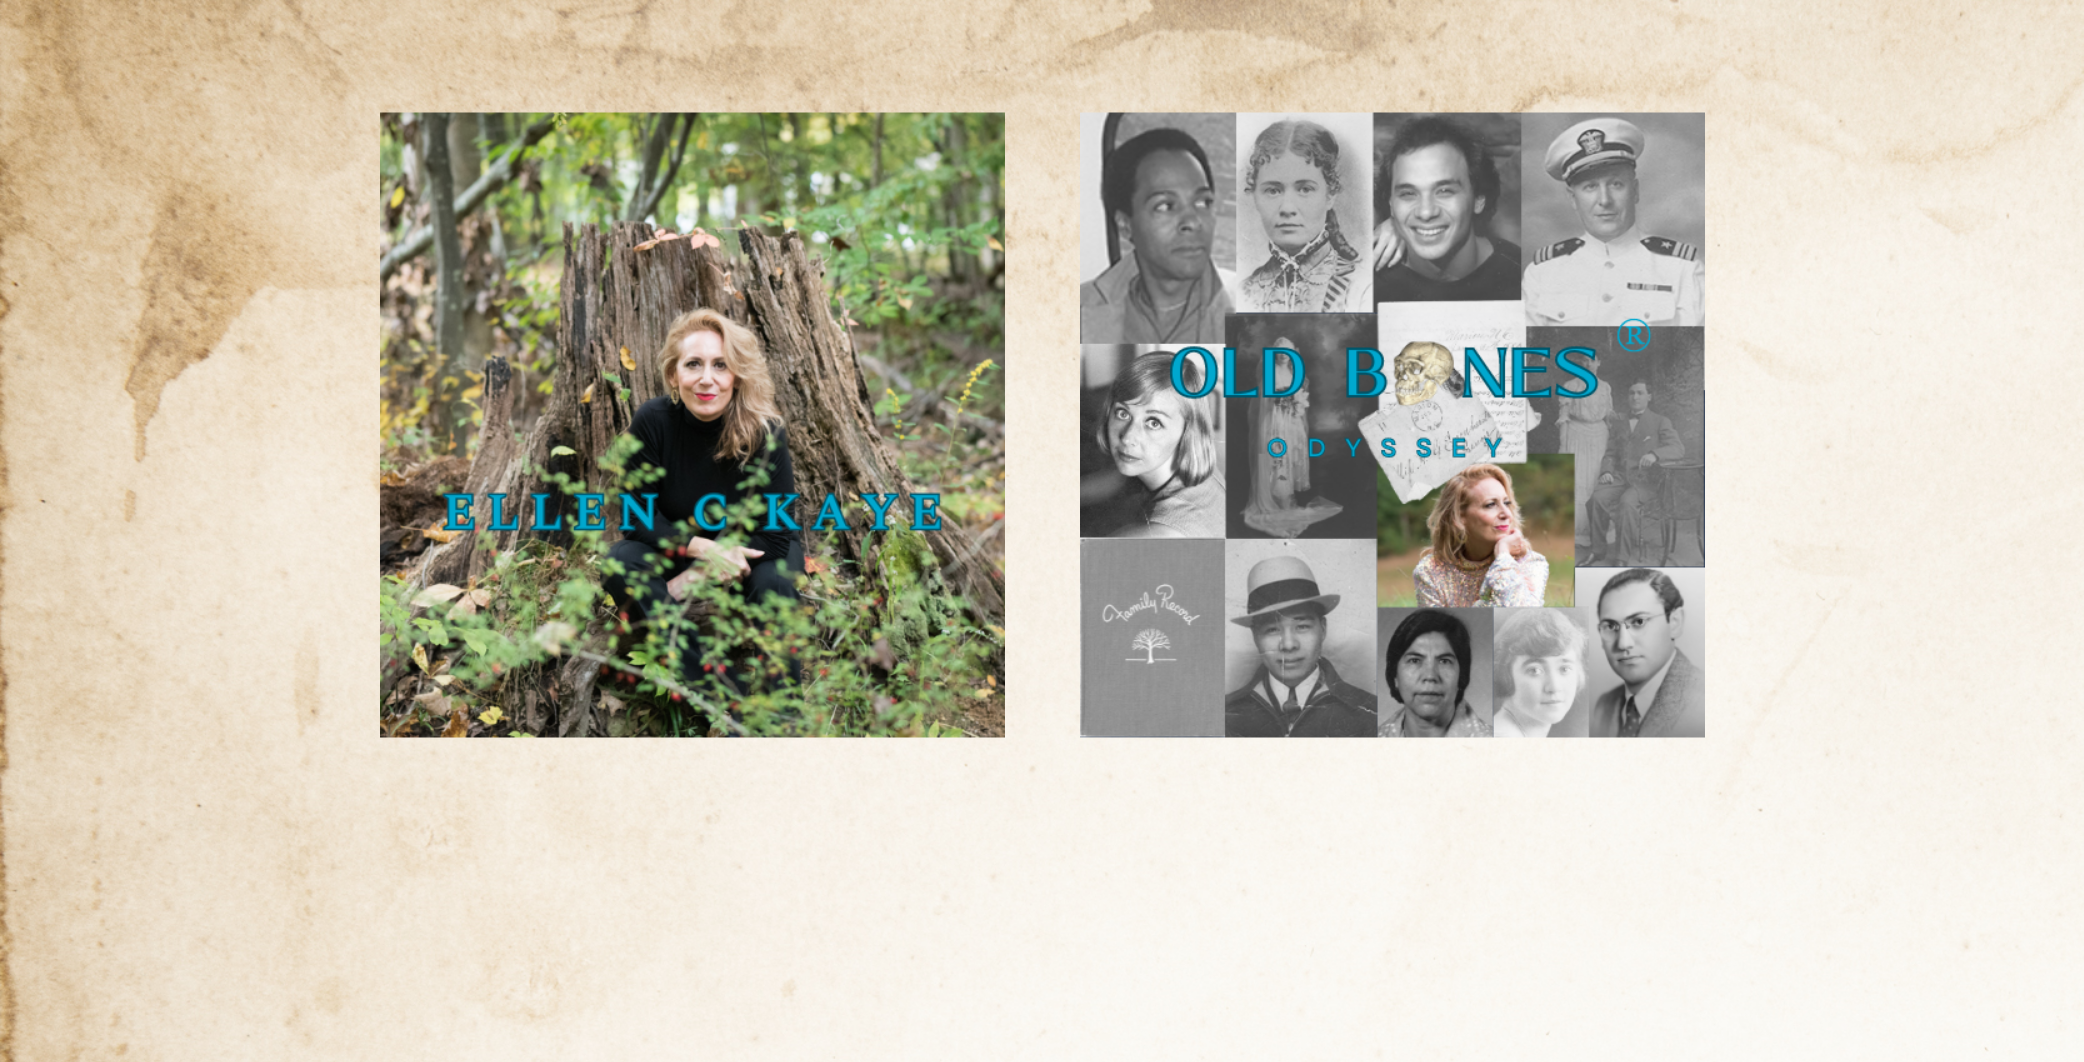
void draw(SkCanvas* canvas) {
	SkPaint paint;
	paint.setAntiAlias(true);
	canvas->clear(0xffffffff);
	canvas->drawImageRect(SkImages::DeferredFromEncodedData(SkData::MakeFromFileName("img1.png")), SkRect::MakeXYWH(0, 0, 2084, 1062), SkSamplingOptions());
	canvas->drawImageRect(SkImages::DeferredFromEncodedData(SkData::MakeFromFileName("img2.png")), SkRect::MakeXYWH(380, 112, 625, 626), SkSamplingOptions());
	canvas->drawImageRect(SkImages::DeferredFromEncodedData(SkData::MakeFromFileName("img3.png")), SkRect::MakeXYWH(1080, 112, 625, 626), SkSamplingOptions());
}
